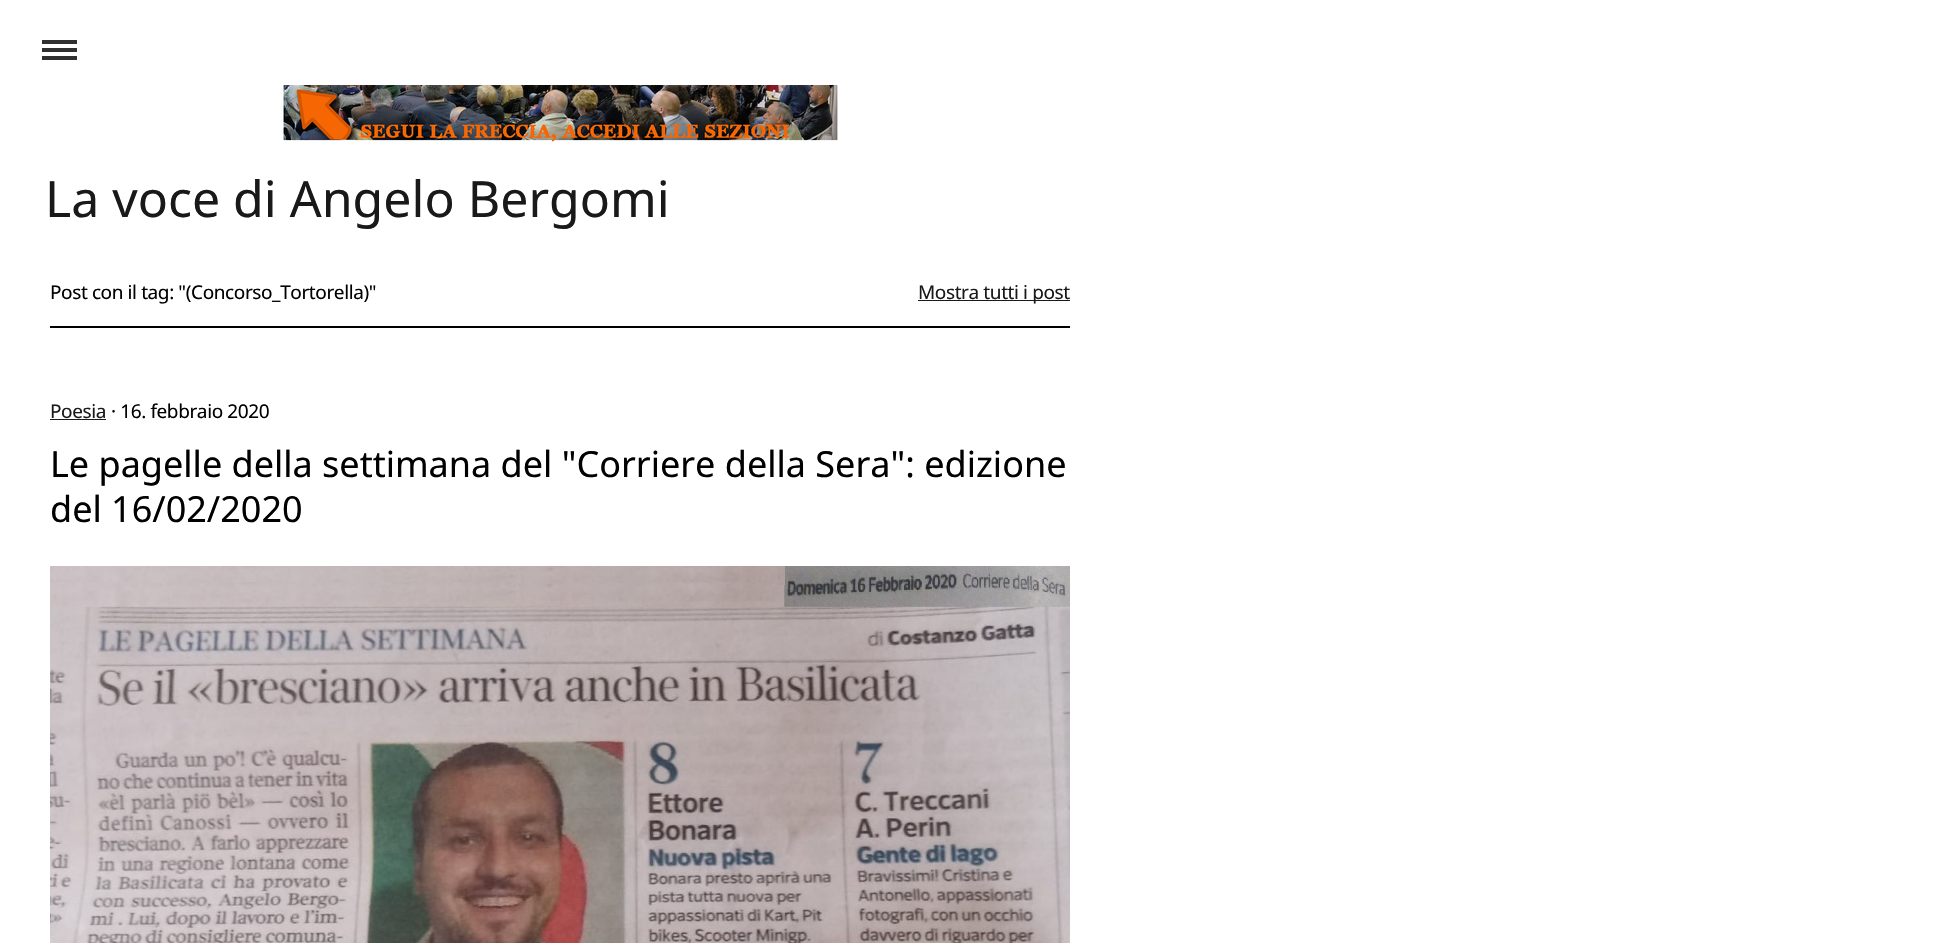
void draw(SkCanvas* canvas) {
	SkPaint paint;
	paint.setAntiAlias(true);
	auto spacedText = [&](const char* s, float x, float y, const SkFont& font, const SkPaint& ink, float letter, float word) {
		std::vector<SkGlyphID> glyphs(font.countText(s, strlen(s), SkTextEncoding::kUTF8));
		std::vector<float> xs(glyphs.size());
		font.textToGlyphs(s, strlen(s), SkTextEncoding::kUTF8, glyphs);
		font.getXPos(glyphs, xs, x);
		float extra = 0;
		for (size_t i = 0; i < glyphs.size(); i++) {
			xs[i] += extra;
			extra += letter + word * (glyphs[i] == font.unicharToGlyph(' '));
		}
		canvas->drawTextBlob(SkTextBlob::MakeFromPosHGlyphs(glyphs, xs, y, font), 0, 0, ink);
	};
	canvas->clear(0xffffffff);
	paint.setColor(0xff303030);
	canvas->drawRect(SkRect::MakeXYWH(42, 40, 35, 4), paint);
	canvas->drawRect(SkRect::MakeXYWH(42, 48, 35, 4), paint);
	canvas->drawRect(SkRect::MakeXYWH(42, 56, 35, 4), paint);
	canvas->drawImageRect(SkImages::DeferredFromEncodedData(SkData::MakeFromFileName("img1.png")), SkRect::MakeXYWH(281, 85, 557, 57), SkSamplingOptions());
	SkFont f1(fontMgr->matchFamilyStyle("Noto Sans", SkFontStyle::Normal()), 50);
	f1.setSubpixel(true);
	paint.setColor(0xff191919);
	canvas->drawString("La voce di Angelo Bergomi", 45, 217, f1, paint);
	SkFont f2(fontMgr->matchFamilyStyle("Noto Sans", SkFontStyle::Normal()), 19);
	f2.setSubpixel(true);
	paint.setColor(0xff000000);
	spacedText("Post con il tag: \"(Concorso_Tortorella)\"", 50, 299, f2, paint, -0.4, 0);
	paint.setColor(0xff191919);
	canvas->drawRect(SkRect::MakeXYWH(918, 300, 152, 1), paint);
	spacedText("Mostra tutti i post", 918, 299, f2, paint, -0.4, 0);
	paint.setColor(0xff000000);
	canvas->drawRect(SkRect::MakeXYWH(50, 326, 1020, 2), paint);
	paint.setColor(0xff191919);
	spacedText("Poesia", 50, 418, f2, paint, -0.4, 0);
	canvas->drawRect(SkRect::MakeXYWH(50, 419, 56, 1), paint);
	paint.setColor(0xff000000);
	spacedText("· 16. febbraio 2020", 111, 418, f2, paint, -0.4, 0);
	SkFont f3(fontMgr->matchFamilyStyle("Noto Sans", SkFontStyle::Normal()), 36);
	f3.setSubpixel(true);
	canvas->drawString("Le pagelle della settimana del \"Corriere della Sera\": edizione", 50, 477, f3, paint);
	canvas->drawString("del 16/02/2020", 50, 522, f3, paint);
	canvas->drawImageRect(SkImages::DeferredFromEncodedData(SkData::MakeFromFileName("img2.png")), SkRect::MakeXYWH(50, 566, 1020, 377), SkSamplingOptions());
}
